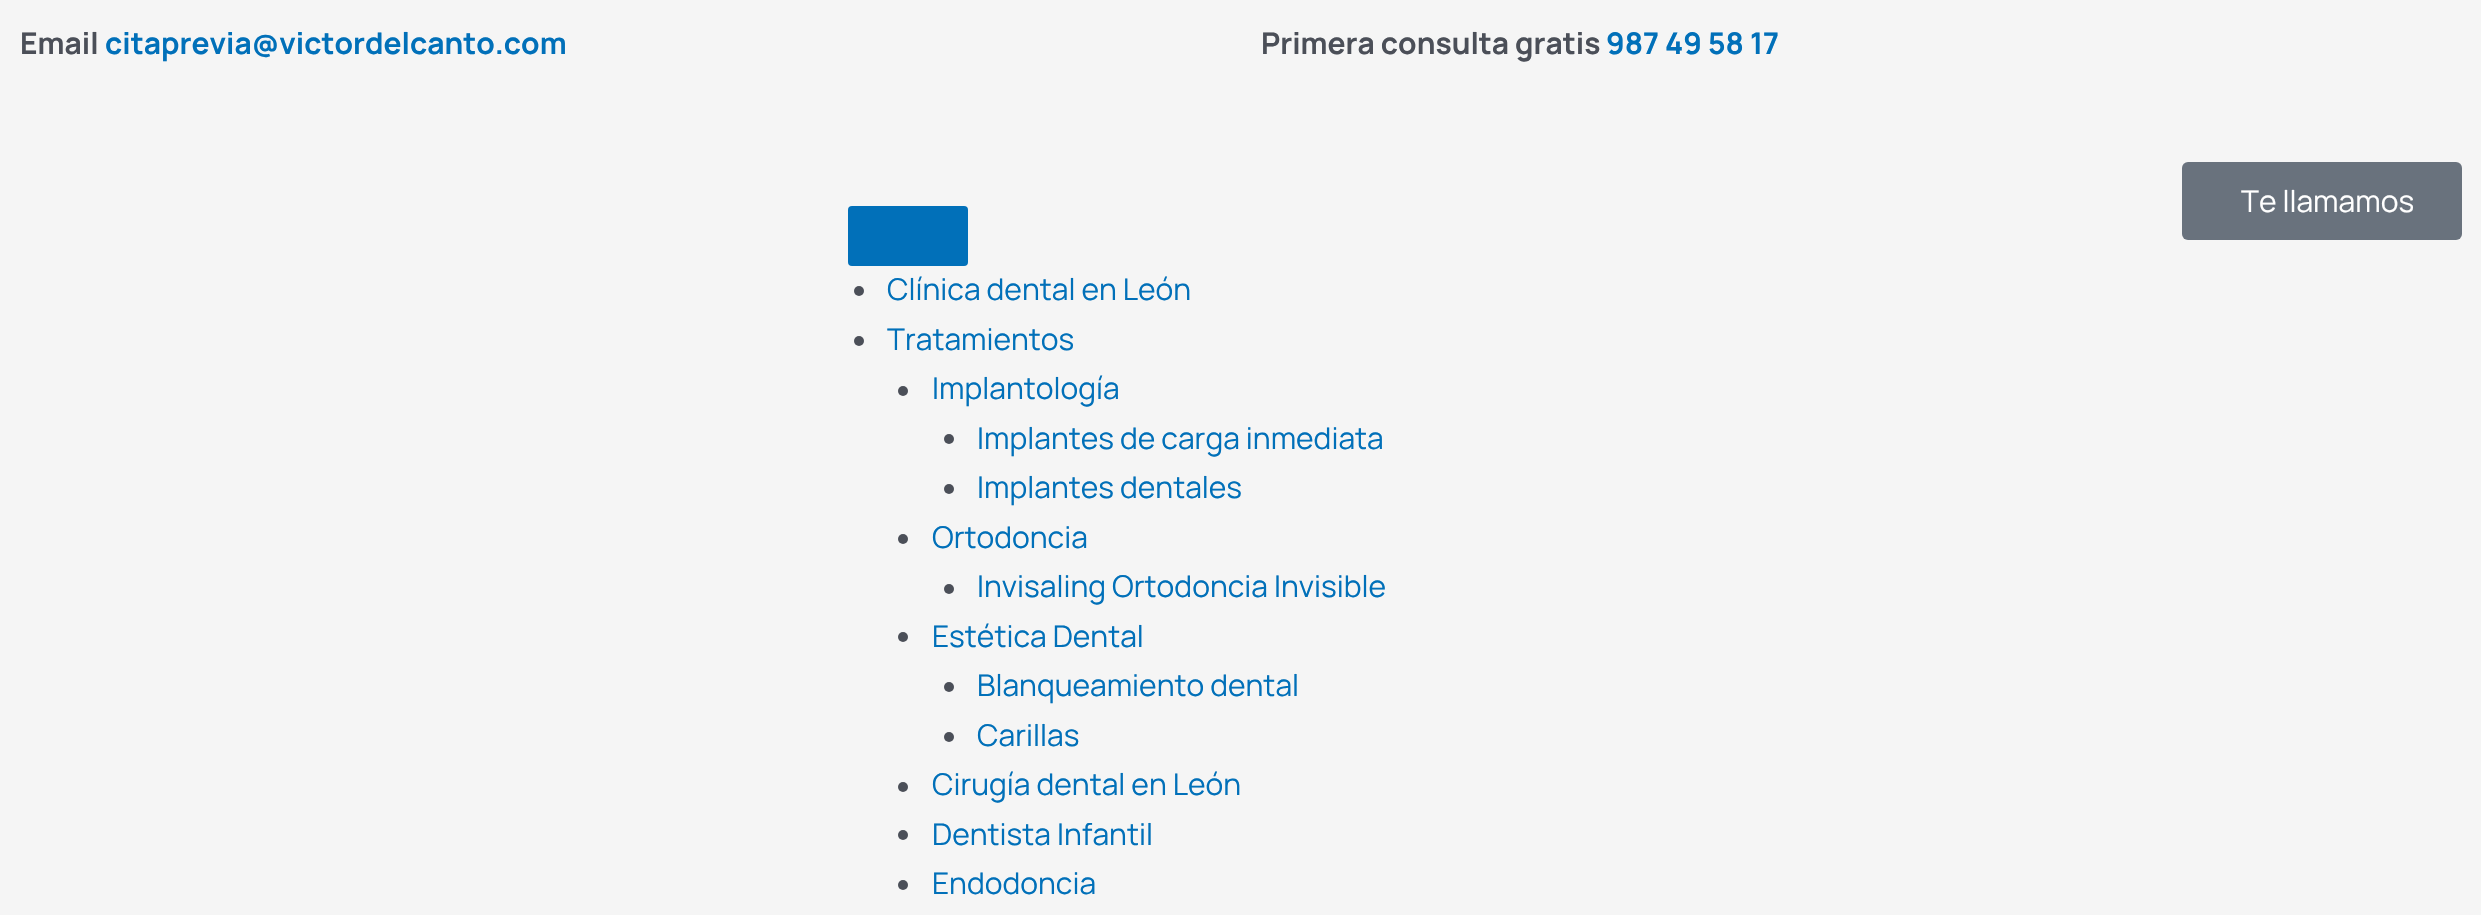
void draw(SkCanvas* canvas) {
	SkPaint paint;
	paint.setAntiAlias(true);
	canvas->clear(0xfff5f5f5);
	SkFont f1(fontMgr->matchFamilyStyle("Manrope", SkFontStyle::Bold()), 30);
	f1.setSubpixel(true);
	paint.setColor(0xff4b4f58);
	canvas->drawString("Email", 20, 54, f1, paint);
	paint.setColor(0xff0170b9);
	canvas->drawString("citaprevia@victordelcanto.com", 105, 54, f1, paint);
	paint.setColor(0xff4b4f58);
	canvas->drawString("Primera consulta gratis", 1261, 54, f1, paint);
	paint.setColor(0xff0170b9);
	canvas->drawString("987 49 58 17", 1606, 54, f1, paint);
	paint.setColor(0xff69727d);
	canvas->drawRoundRect(SkRect::MakeXYWH(2182, 162, 280, 78), 6, 6, paint);
	SkFont f2(fontMgr->matchFamilyStyle("Manrope", SkFontStyle::Normal()), 30);
	f2.setSubpixel(true);
	paint.setColor(0xffffffff);
	canvas->drawString("Te llamamos", 2241, 212, f2, paint);
	paint.setColor(0xff0170b9);
	canvas->drawRoundRect(SkRect::MakeXYWH(848, 206, 120, 60), 4, 4, paint);
	paint.setColor(0xff4b4f58);
	canvas->drawCircle(859, 291, 5, paint);
	paint.setColor(0xff0170b9);
	canvas->drawString("Clínica dental en León", 887, 300, f2, paint);
	paint.setColor(0xff4b4f58);
	canvas->drawCircle(859, 341, 5, paint);
	paint.setColor(0xff0170b9);
	canvas->drawString("Tratamientos", 887, 350, f2, paint);
	paint.setColor(0xff4b4f58);
	canvas->drawCircle(903, 391, 5, paint);
	paint.setColor(0xff0170b9);
	canvas->drawString("Implantología", 932, 399, f2, paint);
	paint.setColor(0xff4b4f58);
	canvas->drawCircle(949, 439, 5, paint);
	paint.setColor(0xff0170b9);
	canvas->drawString("Implantes de carga inmediata", 977, 449, f2, paint);
	paint.setColor(0xff4b4f58);
	canvas->drawCircle(949, 489, 5, paint);
	paint.setColor(0xff0170b9);
	canvas->drawString("Implantes dentales", 977, 498, f2, paint);
	paint.setColor(0xff4b4f58);
	canvas->drawCircle(903, 539, 5, paint);
	paint.setColor(0xff0170b9);
	canvas->drawString("Ortodoncia", 932, 548, f2, paint);
	paint.setColor(0xff4b4f58);
	canvas->drawCircle(949, 589, 5, paint);
	paint.setColor(0xff0170b9);
	canvas->drawString("Invisaling Ortodoncia Invisible", 977, 597, f2, paint);
	paint.setColor(0xff4b4f58);
	canvas->drawCircle(903, 637, 5, paint);
	paint.setColor(0xff0170b9);
	canvas->drawString("Estética Dental", 932, 647, f2, paint);
	paint.setColor(0xff4b4f58);
	canvas->drawCircle(949, 687, 5, paint);
	paint.setColor(0xff0170b9);
	canvas->drawString("Blanqueamiento dental", 977, 696, f2, paint);
	paint.setColor(0xff4b4f58);
	canvas->drawCircle(949, 737, 5, paint);
	paint.setColor(0xff0170b9);
	canvas->drawString("Carillas", 977, 746, f2, paint);
	paint.setColor(0xff4b4f58);
	canvas->drawCircle(903, 787, 5, paint);
	paint.setColor(0xff0170b9);
	canvas->drawString("Cirugía dental en León", 932, 795, f2, paint);
	paint.setColor(0xff4b4f58);
	canvas->drawCircle(903, 835, 5, paint);
	paint.setColor(0xff0170b9);
	canvas->drawString("Dentista Infantil", 932, 845, f2, paint);
	paint.setColor(0xff4b4f58);
	canvas->drawCircle(903, 885, 5, paint);
	paint.setColor(0xff0170b9);
	canvas->drawString("Endodoncia", 932, 894, f2, paint);
}
